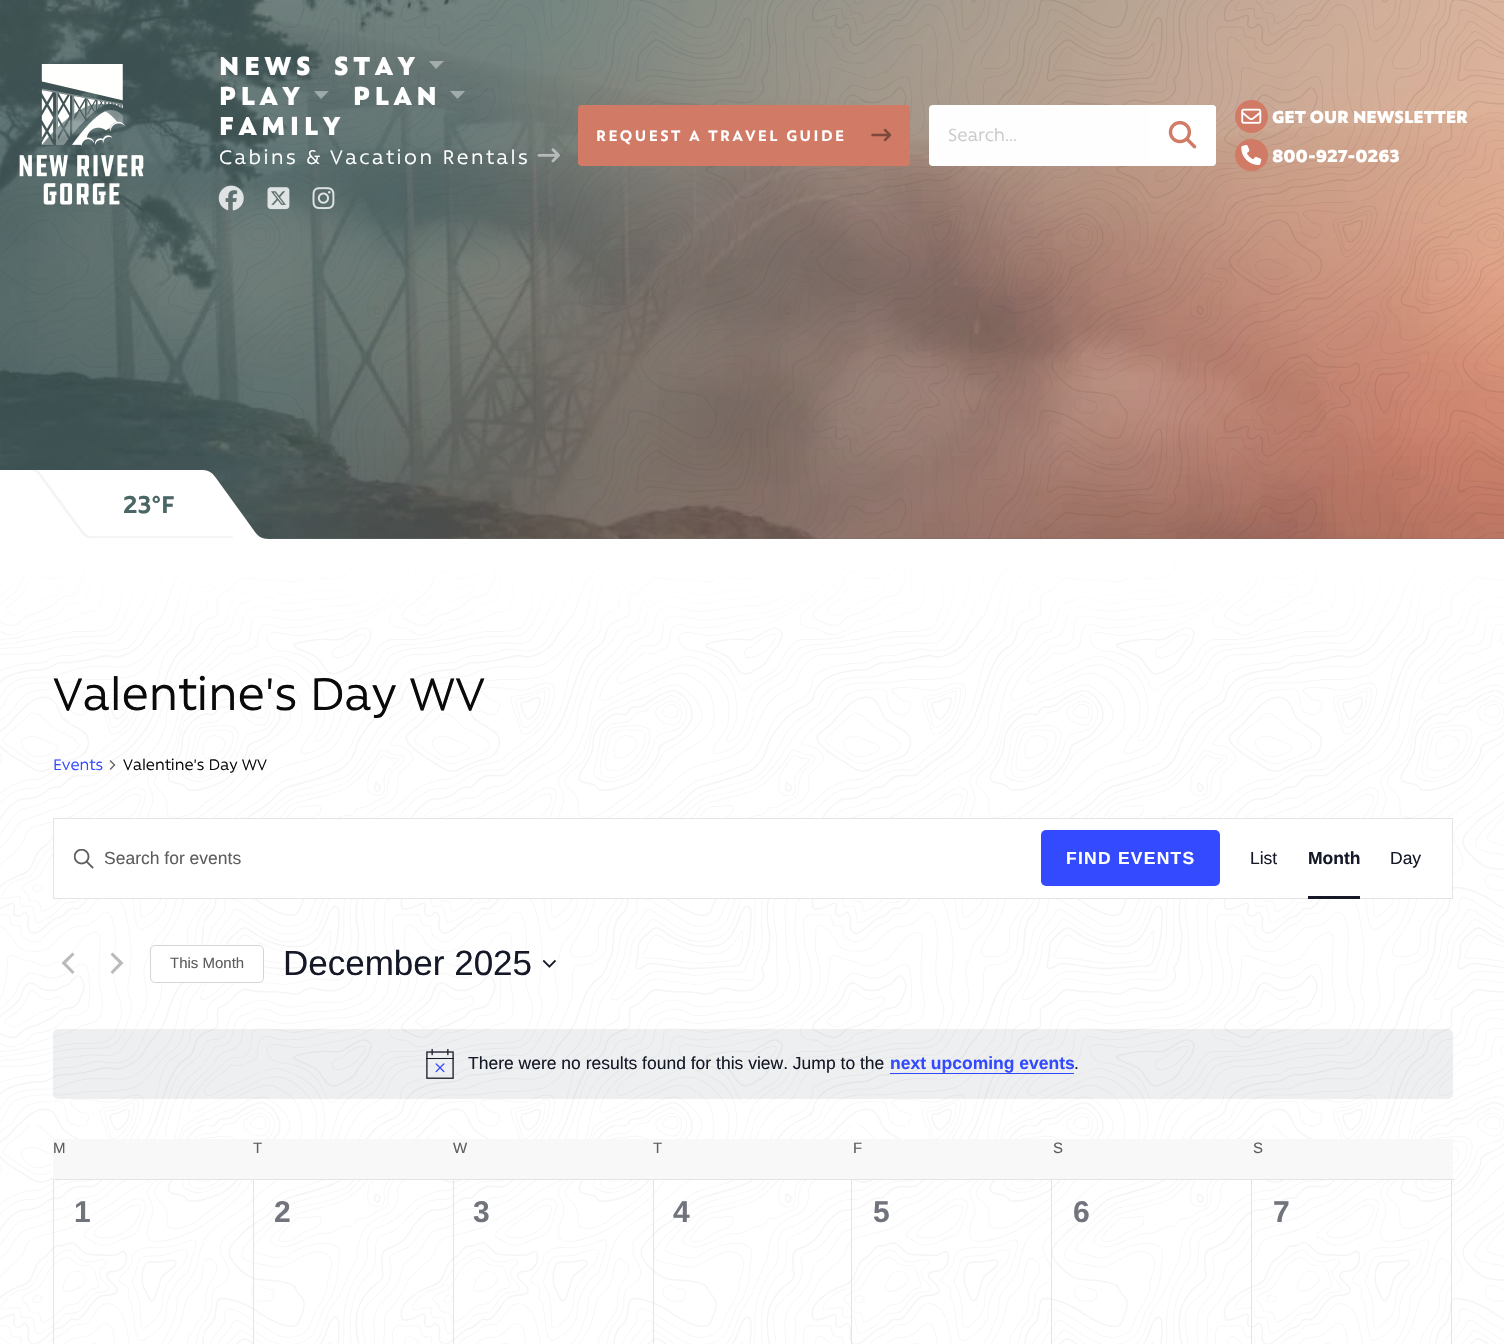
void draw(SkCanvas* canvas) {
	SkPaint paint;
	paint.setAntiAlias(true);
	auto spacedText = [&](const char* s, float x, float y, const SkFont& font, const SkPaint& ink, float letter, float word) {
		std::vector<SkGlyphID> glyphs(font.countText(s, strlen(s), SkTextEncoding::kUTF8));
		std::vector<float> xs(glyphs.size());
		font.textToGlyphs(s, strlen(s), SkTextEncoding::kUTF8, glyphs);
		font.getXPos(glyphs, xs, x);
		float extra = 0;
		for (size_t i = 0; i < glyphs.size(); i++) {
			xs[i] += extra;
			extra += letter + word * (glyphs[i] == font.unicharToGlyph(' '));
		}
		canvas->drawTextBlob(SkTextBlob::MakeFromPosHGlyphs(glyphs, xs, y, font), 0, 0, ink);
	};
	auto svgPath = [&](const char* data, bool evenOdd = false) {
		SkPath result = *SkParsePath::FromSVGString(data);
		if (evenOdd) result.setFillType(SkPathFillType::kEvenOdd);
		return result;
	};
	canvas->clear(0xffffffff);
	canvas->drawImageRect(SkImages::DeferredFromEncodedData(SkData::MakeFromFileName("img1.png")), SkRect::MakeXYWH(0, 540, 1504, 804), SkSamplingOptions());
	paint.setColor(0xff4a6765);
	canvas->drawRect(SkRect::MakeXYWH(262, 538, 1242, 1), paint);
	canvas->drawImageRect(SkImages::DeferredFromEncodedData(SkData::MakeFromFileName("img2.png")), SkRect::MakeXYWH(0, 0, 1504, 539), SkSamplingOptions());
	canvas->drawImageRect(SkImages::DeferredFromEncodedData(SkData::MakeFromFileName("img3.png")), SkRect::MakeXYWH(0, 0, 1504, 539), SkSamplingOptions());
	{
		const SkColor colors[] = {0xb34a6765, 0x73d17a66};
		const float stops[] = {0.29, 0.91};
		const SkPoint ends[] = {{108, -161}, {1397, 700}};
		paint.setShader(SkGradientShader::MakeLinear(ends, colors, stops, 2, SkTileMode::kClamp));
		paint.setAlpha(255);
	}
	canvas->drawRect(SkRect::MakeXYWH(0, 0, 1504, 539), paint);
	canvas->drawImageRect(SkImages::DeferredFromEncodedData(SkData::MakeFromFileName("img4.png")), SkRect::MakeXYWH(19, 64, 125, 141), SkSamplingOptions());
	SkFont f1(fontMgr->matchFamilyStyle("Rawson", SkFontStyle(900, SkFontStyle::kNormal_Width, SkFontStyle::kUpright_Slant)), 30);
	f1.setSubpixel(true);
	paint.setShader(nullptr);
	paint.setColor(0xffffffff);
	spacedText("NEWS", 219, 75, f1, paint, 5, 0);
	spacedText("STAY", 334, 75, f1, paint, 5, 0);
	paint.setColor(0x66ffffff);
	canvas->drawPath(svgPath("M429 61H444L436 69Z"), paint);
	paint.setColor(0xffffffff);
	spacedText("PLAY", 219, 105, f1, paint, 5, 0);
	paint.setColor(0x66ffffff);
	canvas->drawPath(svgPath("M314 91H329L321 99Z"), paint);
	paint.setColor(0xffffffff);
	spacedText("PLAN", 353, 105, f1, paint, 5, 0);
	paint.setColor(0x66ffffff);
	canvas->drawPath(svgPath("M450 91H465L457.5 99Z"), paint);
	paint.setColor(0xffffffff);
	spacedText("FAMILY", 219, 135, f1, paint, 5, 0);
	SkFont f2(fontMgr->matchFamilyStyle("Rawson", SkFontStyle::Normal()), 22.5);
	f2.setSubpixel(true);
	spacedText("Cabins & Vacation Rentals", 219, 164, f2, paint, 2.5, 0);
	canvas->drawImageRect(SkImages::DeferredFromEncodedData(SkData::MakeFromFileName("img5.png")), SkRect::MakeXYWH(537, 148, 23, 15), SkSamplingOptions());
	canvas->drawImageRect(SkImages::DeferredFromEncodedData(SkData::MakeFromFileName("img6.png")), SkRect::MakeXYWH(218, 185, 26, 26), SkSamplingOptions());
	canvas->drawImageRect(SkImages::DeferredFromEncodedData(SkData::MakeFromFileName("img7.png")), SkRect::MakeXYWH(267, 187, 23, 23), SkSamplingOptions());
	canvas->drawImageRect(SkImages::DeferredFromEncodedData(SkData::MakeFromFileName("img8.png")), SkRect::MakeXYWH(312, 187, 23, 23), SkSamplingOptions());
	paint.setColor(0xffd17a66);
	canvas->drawRoundRect(SkRect::MakeXYWH(578, 105, 332, 61), 4, 4, paint);
	SkFont f3(fontMgr->matchFamilyStyle("Rawson", SkFontStyle::Bold()), 17.5);
	f3.setSubpixel(true);
	paint.setColor(0xffffffff);
	spacedText("REQUEST A TRAVEL GUIDE", 596, 141, f3, paint, 2.5, 0);
	canvas->drawImageRect(SkImages::DeferredFromEncodedData(SkData::MakeFromFileName("img9.png")), SkRect::MakeXYWH(871, 128, 21, 14), SkSamplingOptions());
	paint.setColor(0xfffefefe);
	canvas->drawRoundRect(SkRect::MakeXYWH(929, 105, 287, 61), 4, 4, paint);
	SkFont f4(fontMgr->matchFamilyStyle("Rawson", SkFontStyle::Normal()), 20);
	f4.setSubpixel(true);
	paint.setColor(0xffcacaca);
	canvas->drawString("Search...", 948, 141, f4, paint);
	paint.setColor(0xffffffff);
	canvas->drawRoundRect(SkRect::MakeXYWH(1149, 105, 67, 60), 4, 4, paint);
	canvas->drawImageRect(SkImages::DeferredFromEncodedData(SkData::MakeFromFileName("img10.png")), SkRect::MakeXYWH(1168, 121, 29, 28), SkSamplingOptions());
	paint.setColor(0xffd17a66);
	canvas->drawCircle(1251.5, 116.5, 16.5, paint);
	canvas->drawImageRect(SkImages::DeferredFromEncodedData(SkData::MakeFromFileName("img11.png")), SkRect::MakeXYWH(1241, 108, 21, 16), SkSamplingOptions());
	SkFont f5(fontMgr->matchFamilyStyle("Rawson", SkFontStyle(900, SkFontStyle::kNormal_Width, SkFontStyle::kUpright_Slant)), 20);
	f5.setSubpixel(true);
	paint.setColor(0xffffffff);
	canvas->drawString("GET OUR NEWSLETTER", 1272, 123, f5, paint);
	paint.setColor(0xffd17a66);
	canvas->drawRoundRect(SkRect::MakeXYWH(1235, 139, 33, 32), 16, 16, paint);
	canvas->drawImageRect(SkImages::DeferredFromEncodedData(SkData::MakeFromFileName("img12.png")), SkRect::MakeXYWH(1241, 145, 21, 20), SkSamplingOptions());
	paint.setColor(0xffffffff);
	canvas->drawString("800-927-0263", 1272, 162, f5, paint);
	canvas->drawPath(svgPath("M200 470H-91V539H269C258 539 256 533 250 525L216 478C211 471 208 470 200 470Z"), paint);
	canvas->drawImageRect(SkImages::DeferredFromEncodedData(SkData::MakeFromFileName("img13.png")), SkRect::MakeXYWH(32, 470, 201, 68), SkSamplingOptions());
	SkFont f6(fontMgr->matchFamilyStyle("Rawson", SkFontStyle::Bold()), 28);
	f6.setSubpixel(true);
	paint.setColor(0xff4a6765);
	canvas->drawString("23°F", 123, 513, f6, paint);
	{
		const SkColor colors[] = {0xffffffff, 0x00ffffff};
		const float stops[] = {0, 1};
		const SkPoint ends[] = {{753, 539}, {753, 664}};
		paint.setShader(SkGradientShader::MakeLinear(ends, colors, stops, 2, SkTileMode::kClamp));
		paint.setAlpha(255);
	}
	canvas->drawRect(SkRect::MakeXYWH(0, 540, 1504, 91), paint);
	SkFont f7(fontMgr->matchFamilyStyle("Rawson", SkFontStyle::Normal()), 52.5);
	f7.setSubpixel(true);
	paint.setShader(nullptr);
	paint.setColor(0xff0a0a0a);
	canvas->drawString("Valentine's Day WV", 53, 710, f7, paint);
	SkFont f8(fontMgr->matchFamilyStyle("Rawson", SkFontStyle::Normal()), 17.5);
	f8.setSubpixel(true);
	paint.setColor(0xff334aff);
	canvas->drawString("Events", 53, 770, f8, paint);
	canvas->drawImageRect(SkImages::DeferredFromEncodedData(SkData::MakeFromFileName("img14.png")), SkRect::MakeXYWH(109, 760, 7, 10), SkSamplingOptions());
	paint.setColor(0xff0a0a0a);
	canvas->drawString("Valentine's Day WV", 123, 770, f8, paint);
	paint.setColor(0xffffffff);
	canvas->drawRect(SkRect::MakeXYWH(53.5, 818.5, 1399, 80), paint);
	paint.setStroke(true);
	paint.setStrokeWidth(1);
	paint.setColor(0xffe4e4e4);
	canvas->drawRect(SkRect::MakeXYWH(53.5, 818.5, 1399, 80), paint);
	canvas->drawImageRect(SkImages::DeferredFromEncodedData(SkData::MakeFromFileName("img15.png")), SkRect::MakeXYWH(74, 849, 20, 20), SkSamplingOptions());
	SkFont f9(fontMgr->matchFamilyStyle("Liberation Sans", SkFontStyle::Normal()), 17.5);
	f9.setSubpixel(true);
	paint.setStroke(false);
	paint.setColor(0xff5d5d5d);
	canvas->drawString("Search for events", 104, 864, f9, paint);
	paint.setColor(0xff334aff);
	canvas->drawRoundRect(SkRect::MakeXYWH(1041, 830, 179, 56), 5, 5, paint);
	SkFont f10(fontMgr->matchFamilyStyle("Liberation Sans", SkFontStyle::Bold()), 17.5);
	f10.setSubpixel(true);
	paint.setColor(0xffffffff);
	spacedText("FIND EVENTS", 1066, 864, f10, paint, 1.25, 0);
	paint.setColor(0xff141827);
	canvas->drawString("List", 1250, 864, f9, paint);
	canvas->drawString("Month", 1308, 864, f10, paint);
	canvas->drawRect(SkRect::MakeXYWH(1308, 896, 52, 3), paint);
	canvas->drawString("Day", 1390, 864, f9, paint);
	paint.setColor(0xffbababa);
	canvas->drawPath(svgPath("M74.5 972L72.5 974L61.5 963L72.5 952.5L74.5 954.5L66 963ZM110.5 954.5L112.5 952.5L123.5 963L112.5 974L110.5 972L119 963Z"), paint);
	paint.setColor(0xffffffff);
	canvas->drawRoundRect(SkRect::MakeXYWH(150.5, 945.5, 113, 37), 4.5, 4.5, paint);
	paint.setStroke(true);
	paint.setColor(0xffd5d5d5);
	canvas->drawRoundRect(SkRect::MakeXYWH(150.5, 945.5, 113, 37), 4.5, 4.5, paint);
	SkFont f11(fontMgr->matchFamilyStyle("Liberation Sans", SkFontStyle::Normal()), 15);
	f11.setSubpixel(true);
	paint.setStroke(false);
	paint.setColor(0xff5d5d5d);
	canvas->drawString("This Month", 170, 968, f11, paint);
	SkFont f12(fontMgr->matchFamilyStyle("Liberation Sans", SkFontStyle::Normal()), 35);
	f12.setSubpixel(true);
	paint.setColor(0xff141827);
	canvas->drawString("December 2025", 283, 975, f12, paint);
	canvas->drawImageRect(SkImages::DeferredFromEncodedData(SkData::MakeFromFileName("img16.png")), SkRect::MakeXYWH(543, 959, 13, 9), SkSamplingOptions());
	paint.setColor(0x12141827);
	canvas->drawRoundRect(SkRect::MakeXYWH(53, 1029, 1400, 70), 5, 5, paint);
	canvas->drawImageRect(SkImages::DeferredFromEncodedData(SkData::MakeFromFileName("img17.png")), SkRect::MakeXYWH(426, 1049, 28, 30), SkSamplingOptions());
	paint.setColor(0xff141827);
	canvas->drawString("There were no results found for this view. Jump to the", 468, 1069, f9, paint);
	paint.setColor(0xff334aff);
	canvas->drawString("next upcoming events", 890, 1069, f10, paint);
	canvas->drawRect(SkRect::MakeXYWH(890, 1073, 184, 1), paint);
	paint.setColor(0xff141827);
	canvas->drawString(".", 1074, 1069, f9, paint);
	paint.setColor(0xfff8f8f8);
	canvas->drawRect(SkRect::MakeXYWH(53, 1139, 1400, 40), paint);
	paint.setColor(0xff5d5d5d);
	canvas->drawString("M", 53, 1153, f11, paint);
	canvas->drawString("T", 253, 1153, f11, paint);
	canvas->drawString("W", 453, 1153, f11, paint);
	canvas->drawString("T", 653, 1153, f11, paint);
	canvas->drawString("F", 853, 1153, f11, paint);
	canvas->drawString("S", 1053, 1153, f11, paint);
	canvas->drawString("S", 1253, 1153, f11, paint);
	paint.setColor(0xffe4e4e4);
	canvas->drawRect(SkRect::MakeXYWH(53, 1179, 1401, 1), paint);
	canvas->drawRect(SkRect::MakeXYWH(53, 1180, 1, 164), paint);
	canvas->drawRect(SkRect::MakeXYWH(253, 1180, 1, 164), paint);
	SkFont f13(fontMgr->matchFamilyStyle("Liberation Sans", SkFontStyle::Bold()), 30);
	f13.setSubpixel(true);
	paint.setColor(0xff72747d);
	canvas->drawString("1", 74, 1222, f13, paint);
	paint.setColor(0xffe4e4e4);
	canvas->drawRect(SkRect::MakeXYWH(453, 1180, 1, 164), paint);
	paint.setColor(0xff72747d);
	canvas->drawString("2", 274, 1222, f13, paint);
	paint.setColor(0xffe4e4e4);
	canvas->drawRect(SkRect::MakeXYWH(653, 1180, 1, 164), paint);
	paint.setColor(0xff72747d);
	canvas->drawString("3", 473, 1222, f13, paint);
	paint.setColor(0xffe4e4e4);
	canvas->drawRect(SkRect::MakeXYWH(851, 1180, 1, 164), paint);
	paint.setColor(0xff72747d);
	canvas->drawString("4", 673, 1222, f13, paint);
	paint.setColor(0xffe4e4e4);
	canvas->drawRect(SkRect::MakeXYWH(1051, 1180, 1, 164), paint);
	paint.setColor(0xff72747d);
	canvas->drawString("5", 873, 1222, f13, paint);
	paint.setColor(0xffe4e4e4);
	canvas->drawRect(SkRect::MakeXYWH(1251, 1180, 1, 164), paint);
	paint.setColor(0xff72747d);
	canvas->drawString("6", 1073, 1222, f13, paint);
	paint.setColor(0xffe4e4e4);
	canvas->drawRect(SkRect::MakeXYWH(1451, 1180, 1, 164), paint);
	paint.setColor(0xff72747d);
	canvas->drawString("7", 1273, 1222, f13, paint);
}
